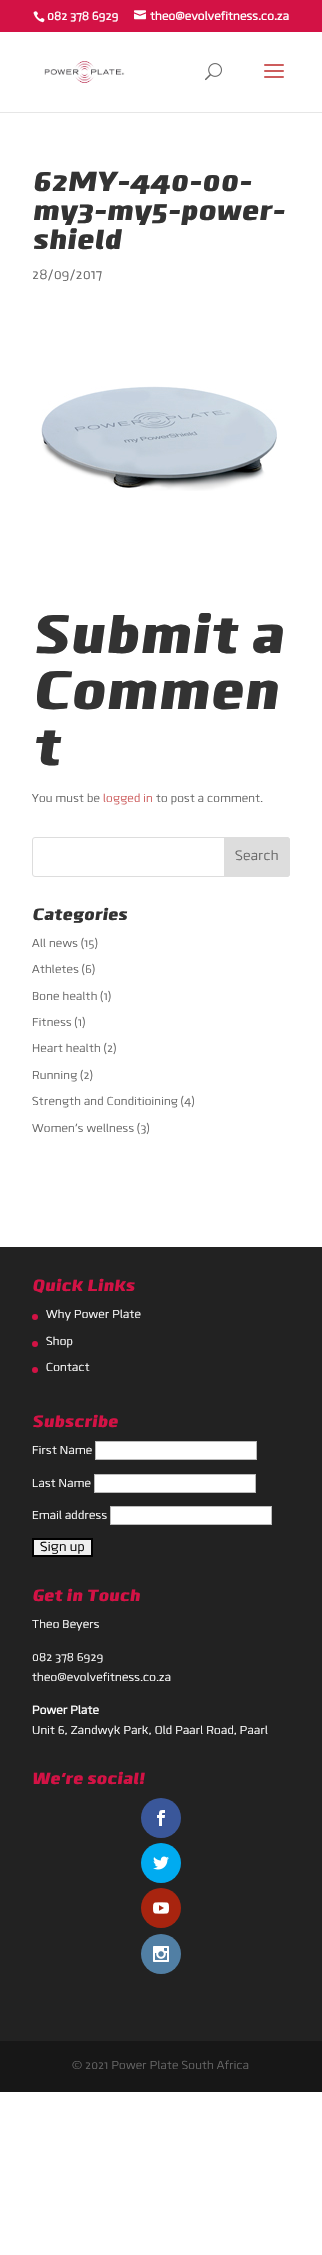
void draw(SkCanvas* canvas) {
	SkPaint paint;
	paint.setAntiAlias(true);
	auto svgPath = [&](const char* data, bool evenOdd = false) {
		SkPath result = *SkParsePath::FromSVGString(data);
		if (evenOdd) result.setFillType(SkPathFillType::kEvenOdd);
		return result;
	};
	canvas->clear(0xffffffff);
	paint.setColor(0xffd31245);
	canvas->drawRect(SkRect::MakeXYWH(0, 0, 322, 32), paint);
	canvas->drawImageRect(SkImages::DeferredFromEncodedData(SkData::MakeFromFileName("img1.png")), SkRect::MakeXYWH(33, 11, 12, 12), SkSamplingOptions());
	SkFont f1(fontMgr->matchFamilyStyle("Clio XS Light", SkFontStyle::Bold()), 12);
	f1.setSubpixel(true);
	paint.setColor(0xffffffff);
	canvas->drawString("082 378 6929", 47, 20, f1, paint);
	canvas->drawImageRect(SkImages::DeferredFromEncodedData(SkData::MakeFromFileName("img2.png")), SkRect::MakeXYWH(134, 10, 12, 10), SkSamplingOptions());
	canvas->drawString("theo@evolvefitness.co.za", 150, 20, f1, paint);
	paint.setColor(0xffe6e6e6);
	canvas->drawRect(SkRect::MakeXYWH(0, 112, 322, 1), paint);
	canvas->drawImageRect(SkImages::DeferredFromEncodedData(SkData::MakeFromFileName("img3.png")), SkRect::MakeXYWH(44, 61, 81, 22), SkSamplingOptions());
	canvas->drawImageRect(SkImages::DeferredFromEncodedData(SkData::MakeFromFileName("img4.png")), SkRect::MakeXYWH(205, 63, 17, 18), SkSamplingOptions());
	canvas->drawImageRect(SkImages::DeferredFromEncodedData(SkData::MakeFromFileName("img5.png")), SkRect::MakeXYWH(264, 64, 20, 14), SkSamplingOptions());
	SkFont f2(fontMgr->matchFamilyStyle("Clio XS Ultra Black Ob", SkFontStyle(800, SkFontStyle::kNormal_Width, SkFontStyle::kUpright_Slant)), 29);
	f2.setSubpixel(true);
	paint.setColor(0xff333333);
	canvas->drawString("62MY-440-00-", 32, 191, f2, paint);
	canvas->drawString("my3-my5-power-", 32, 220, f2, paint);
	canvas->drawString("shield", 32, 249, f2, paint);
	SkFont f3(fontMgr->matchFamilyStyle("Clio XS Light", SkFontStyle(300, SkFontStyle::kNormal_Width, SkFontStyle::kUpright_Slant)), 14);
	f3.setSubpixel(true);
	paint.setColor(0xff666666);
	canvas->drawString("28/09/2017", 32, 279, f3, paint);
	canvas->drawImageRect(SkImages::DeferredFromEncodedData(SkData::MakeFromFileName("img6.png")), SkRect::MakeXYWH(41, 386, 236, 105), SkSamplingOptions());
	SkFont f4(fontMgr->matchFamilyStyle("Clio XS Ultra Black Ob", SkFontStyle(800, SkFontStyle::kNormal_Width, SkFontStyle::kUpright_Slant)), 56);
	f4.setSubpixel(true);
	paint.setColor(0xff333333);
	canvas->drawString("Submit a", 32, 653, f4, paint);
	canvas->drawString("Commen", 32, 709, f4, paint);
	canvas->drawString("t", 32, 765, f4, paint);
	SkFont f5(fontMgr->matchFamilyStyle("Clio XS Light", SkFontStyle(300, SkFontStyle::kNormal_Width, SkFontStyle::kUpright_Slant)), 12);
	f5.setSubpixel(true);
	paint.setColor(0xff666666);
	canvas->drawString("You must be", 32, 802, f5, paint);
	paint.setColor(0xffcd5c5c);
	canvas->drawString("logged in", 103, 802, f5, paint);
	paint.setColor(0xff666666);
	canvas->drawString("to post a comment.", 156, 802, f5, paint);
	paint.setStroke(true);
	paint.setStrokeWidth(1);
	paint.setColor(0xffdddddd);
	canvas->drawRoundRect(SkRect::MakeXYWH(32.5, 837.5, 257, 39), 2.5, 2.5, paint);
	paint.setStroke(false);
	canvas->drawPath(svgPath("M224.5 837.5H287C288.5 837.5 289.5 838.5 289.5 840V874C289.5 875.5 288.5 876.5 287 876.5H224.5Z"), paint);
	paint.setStroke(true);
	canvas->drawPath(svgPath("M224.5 837.5H287C288.5 837.5 289.5 838.5 289.5 840V874C289.5 875.5 288.5 876.5 287 876.5H224.5Z"), paint);
	paint.setStroke(false);
	paint.setColor(0xff666666);
	canvas->drawString("Search", 235, 860, f3, paint);
	SkFont f6(fontMgr->matchFamilyStyle("Clio XS Ultra Black Ob", SkFontStyle(800, SkFontStyle::kNormal_Width, SkFontStyle::kUpright_Slant)), 17);
	f6.setSubpixel(true);
	paint.setColor(0xff333333);
	canvas->drawString("Categories", 32, 920, f6, paint);
	paint.setColor(0xff666666);
	canvas->drawString("All news (15)", 32, 947, f5, paint);
	canvas->drawString("Athletes (6)", 32, 973, f5, paint);
	canvas->drawString("Bone health (1)", 32, 1000, f5, paint);
	canvas->drawString("Fitness (1)", 32, 1026, f5, paint);
	canvas->drawString("Heart health (2)", 32, 1052, f5, paint);
	canvas->drawString("Running (2)", 32, 1079, f5, paint);
	canvas->drawString("Strength and Conditioining (4)", 32, 1105, f5, paint);
	canvas->drawString("Women's wellness (3)", 32, 1132, f5, paint);
	paint.setColor(0xff222222);
	canvas->drawRect(SkRect::MakeXYWH(0, 1247, 322, 794), paint);
	paint.setColor(0xffd31245);
	canvas->drawString("Quick Links", 32, 1291, f6, paint);
	canvas->drawCircle(35, 1317, 3, paint);
	paint.setColor(0xffffffff);
	canvas->drawString("Why Power Plate", 46, 1318, f5, paint);
	paint.setColor(0xffd31245);
	canvas->drawCircle(35, 1344, 3, paint);
	paint.setColor(0xffffffff);
	canvas->drawString("Shop", 46, 1345, f5, paint);
	paint.setColor(0xffd31245);
	canvas->drawCircle(35, 1370, 3, paint);
	paint.setColor(0xffffffff);
	canvas->drawString("Contact", 46, 1371, f5, paint);
	paint.setColor(0xffd31245);
	canvas->drawString("Subscribe", 32, 1427, f6, paint);
	paint.setColor(0xffffffff);
	canvas->drawString("First Name", 32, 1454, f5, paint);
	canvas->drawRect(SkRect::MakeXYWH(95.5, 1441.5, 161, 18), paint);
	paint.setStroke(true);
	paint.setColor(0xffbbbbbb);
	canvas->drawRect(SkRect::MakeXYWH(95.5, 1441.5, 161, 18), paint);
	paint.setStroke(false);
	paint.setColor(0xffffffff);
	canvas->drawString("Last Name", 32, 1487, f5, paint);
	canvas->drawRect(SkRect::MakeXYWH(94.5, 1474.5, 161, 18), paint);
	paint.setStroke(true);
	paint.setColor(0xffbbbbbb);
	canvas->drawRect(SkRect::MakeXYWH(94.5, 1474.5, 161, 18), paint);
	paint.setStroke(false);
	paint.setColor(0xffffffff);
	canvas->drawString("Email address", 32, 1519, f5, paint);
	canvas->drawRect(SkRect::MakeXYWH(110.5, 1506.5, 161, 18), paint);
	paint.setStroke(true);
	paint.setColor(0xffbbbbbb);
	canvas->drawRect(SkRect::MakeXYWH(110.5, 1506.5, 161, 18), paint);
	paint.setStroke(false);
	paint.setColor(0xffefefef);
	canvas->drawRect(SkRect::MakeXYWH(33, 1539, 59, 17), paint);
	paint.setStroke(true);
	paint.setStrokeWidth(2);
	paint.setColor(0xff000000);
	canvas->drawRect(SkRect::MakeXYWH(33, 1539, 59, 17), paint);
	SkFont f7(fontMgr->matchFamilyStyle("Clio XS Light", SkFontStyle(300, SkFontStyle::kNormal_Width, SkFontStyle::kUpright_Slant)), 13.5);
	f7.setSubpixel(true);
	paint.setStroke(false);
	canvas->drawString("Sign up", 40, 1551, f7, paint);
	paint.setColor(0xffd31245);
	canvas->drawString("Get in Touch", 32, 1601, f6, paint);
	paint.setColor(0xffffffff);
	canvas->drawString("Theo Beyers", 32, 1628, f5, paint);
	canvas->drawString("082 378 6929", 32, 1661, f5, paint);
	canvas->drawString("theo@evolvefitness.co.za", 32, 1681, f5, paint);
	canvas->drawString("Power Plate", 32, 1714, f1, paint);
	canvas->drawString("Unit 6, Zandwyk Park, Old Paarl Road, Paarl", 32, 1734, f5, paint);
	paint.setColor(0xffd31245);
	canvas->drawString("We're social!", 32, 1784, f6, paint);
	paint.setColor(0xff3a579a);
	canvas->drawCircle(161, 1818, 20, paint);
	canvas->drawImageRect(SkImages::DeferredFromEncodedData(SkData::MakeFromFileName("img7.png")), SkRect::MakeXYWH(157, 1810, 8, 16), SkSamplingOptions());
	paint.setColor(0xff00abf0);
	canvas->drawCircle(161, 1863, 20, paint);
	canvas->drawImageRect(SkImages::DeferredFromEncodedData(SkData::MakeFromFileName("img8.png")), SkRect::MakeXYWH(153, 1856, 16, 14), SkSamplingOptions());
	paint.setColor(0xffa8240f);
	canvas->drawCircle(161, 1908, 20, paint);
	canvas->drawImageRect(SkImages::DeferredFromEncodedData(SkData::MakeFromFileName("img9.png")), SkRect::MakeXYWH(153, 1902, 16, 12), SkSamplingOptions());
	paint.setColor(0xff517fa4);
	canvas->drawCircle(161, 1954, 20, paint);
	canvas->drawImageRect(SkImages::DeferredFromEncodedData(SkData::MakeFromFileName("img10.png")), SkRect::MakeXYWH(153, 1946, 16, 16), SkSamplingOptions());
	paint.setColor(0xff171717);
	canvas->drawRect(SkRect::MakeXYWH(0, 2041, 322, 51), paint);
	paint.setColor(0xff666666);
	canvas->drawString("© 2021 Power Plate South Africa", 72, 2069, f5, paint);
}
